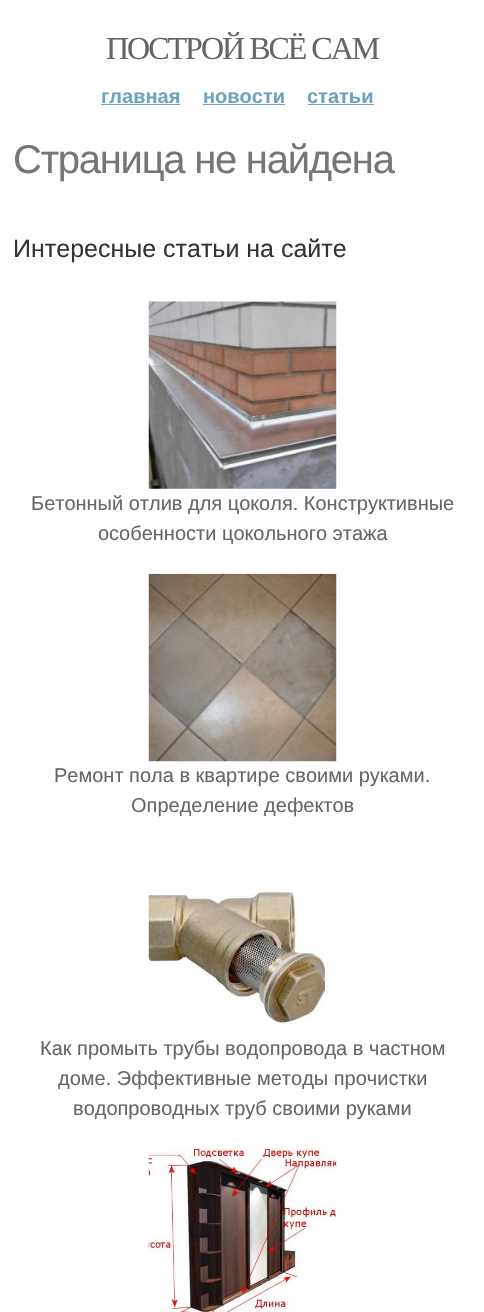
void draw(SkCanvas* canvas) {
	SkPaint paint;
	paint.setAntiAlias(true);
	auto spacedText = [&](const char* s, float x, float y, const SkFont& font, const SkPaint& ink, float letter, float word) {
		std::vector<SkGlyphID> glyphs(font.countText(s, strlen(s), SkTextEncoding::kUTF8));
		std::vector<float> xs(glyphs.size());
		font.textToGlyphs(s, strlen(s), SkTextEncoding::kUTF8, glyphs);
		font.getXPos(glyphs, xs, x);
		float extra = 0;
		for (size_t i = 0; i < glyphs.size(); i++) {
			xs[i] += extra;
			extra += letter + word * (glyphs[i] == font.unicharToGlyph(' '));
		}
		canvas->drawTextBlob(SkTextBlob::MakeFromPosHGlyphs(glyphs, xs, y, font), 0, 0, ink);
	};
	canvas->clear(0xffffffff);
	SkFont f1(fontMgr->matchFamilyStyle("Liberation Serif", SkFontStyle::Normal()), 32);
	f1.setSubpixel(true);
	paint.setColor(0xff666666);
	spacedText("ПОСТРОЙ ВСЁ САМ", 106, 59, f1, paint, -2, 0);
	SkFont f2(fontMgr->matchFamilyStyle("Liberation Sans", SkFontStyle::Bold()), 20);
	f2.setSubpixel(true);
	paint.setColor(0xff6da3bd);
	canvas->drawString("главная", 101, 103, f2, paint);
	canvas->drawRect(SkRect::MakeXYWH(101, 104, 79, 1), paint);
	canvas->drawString("новости", 203, 103, f2, paint);
	canvas->drawRect(SkRect::MakeXYWH(203, 104, 82, 1), paint);
	canvas->drawString("статьи", 307, 103, f2, paint);
	canvas->drawRect(SkRect::MakeXYWH(308, 104, 66, 1), paint);
	SkFont f3(fontMgr->matchFamilyStyle("Liberation Sans", SkFontStyle::Normal()), 40);
	f3.setSubpixel(true);
	paint.setColor(0xff767676);
	spacedText("Страница не найдена", 13, 173, f3, paint, -1.25, 0);
	SkFont f4(fontMgr->matchFamilyStyle("Liberation Sans", SkFontStyle::Normal()), 25);
	f4.setSubpixel(true);
	paint.setColor(0xff333333);
	canvas->drawString("Интересные статьи на сайте", 13, 257, f4, paint);
	canvas->drawImageRect(SkImages::DeferredFromEncodedData(SkData::MakeFromFileName("img1.png")), SkRect::MakeXYWH(148, 301, 189, 188), SkSamplingOptions());
	SkFont f5(fontMgr->matchFamilyStyle("Liberation Sans", SkFontStyle::Normal()), 20);
	f5.setSubpixel(true);
	paint.setColor(0xff666666);
	canvas->drawString("Бетонный отлив для цоколя. Конструктивные", 31, 510, f5, paint);
	canvas->drawString("особенности цокольного этажа", 98, 540, f5, paint);
	canvas->drawImageRect(SkImages::DeferredFromEncodedData(SkData::MakeFromFileName("img2.png")), SkRect::MakeXYWH(148, 573, 189, 189), SkSamplingOptions());
	canvas->drawString("Ремонт пола в квартире своими руками.", 54, 782, f5, paint);
	canvas->drawString("Определение дефектов", 131, 812, f5, paint);
	canvas->drawImageRect(SkImages::DeferredFromEncodedData(SkData::MakeFromFileName("img3.png")), SkRect::MakeXYWH(148, 889, 181, 136), SkSamplingOptions());
	canvas->drawString("Как промыть трубы водопровода в частном", 40, 1055, f5, paint);
	canvas->drawString("доме. Эффективные методы прочистки", 58, 1085, f5, paint);
	canvas->drawString("водопроводных труб своими руками", 73, 1115, f5, paint);
	canvas->drawImageRect(SkImages::DeferredFromEncodedData(SkData::MakeFromFileName("img4.png")), SkRect::MakeXYWH(148, 1148, 189, 164), SkSamplingOptions());
}
